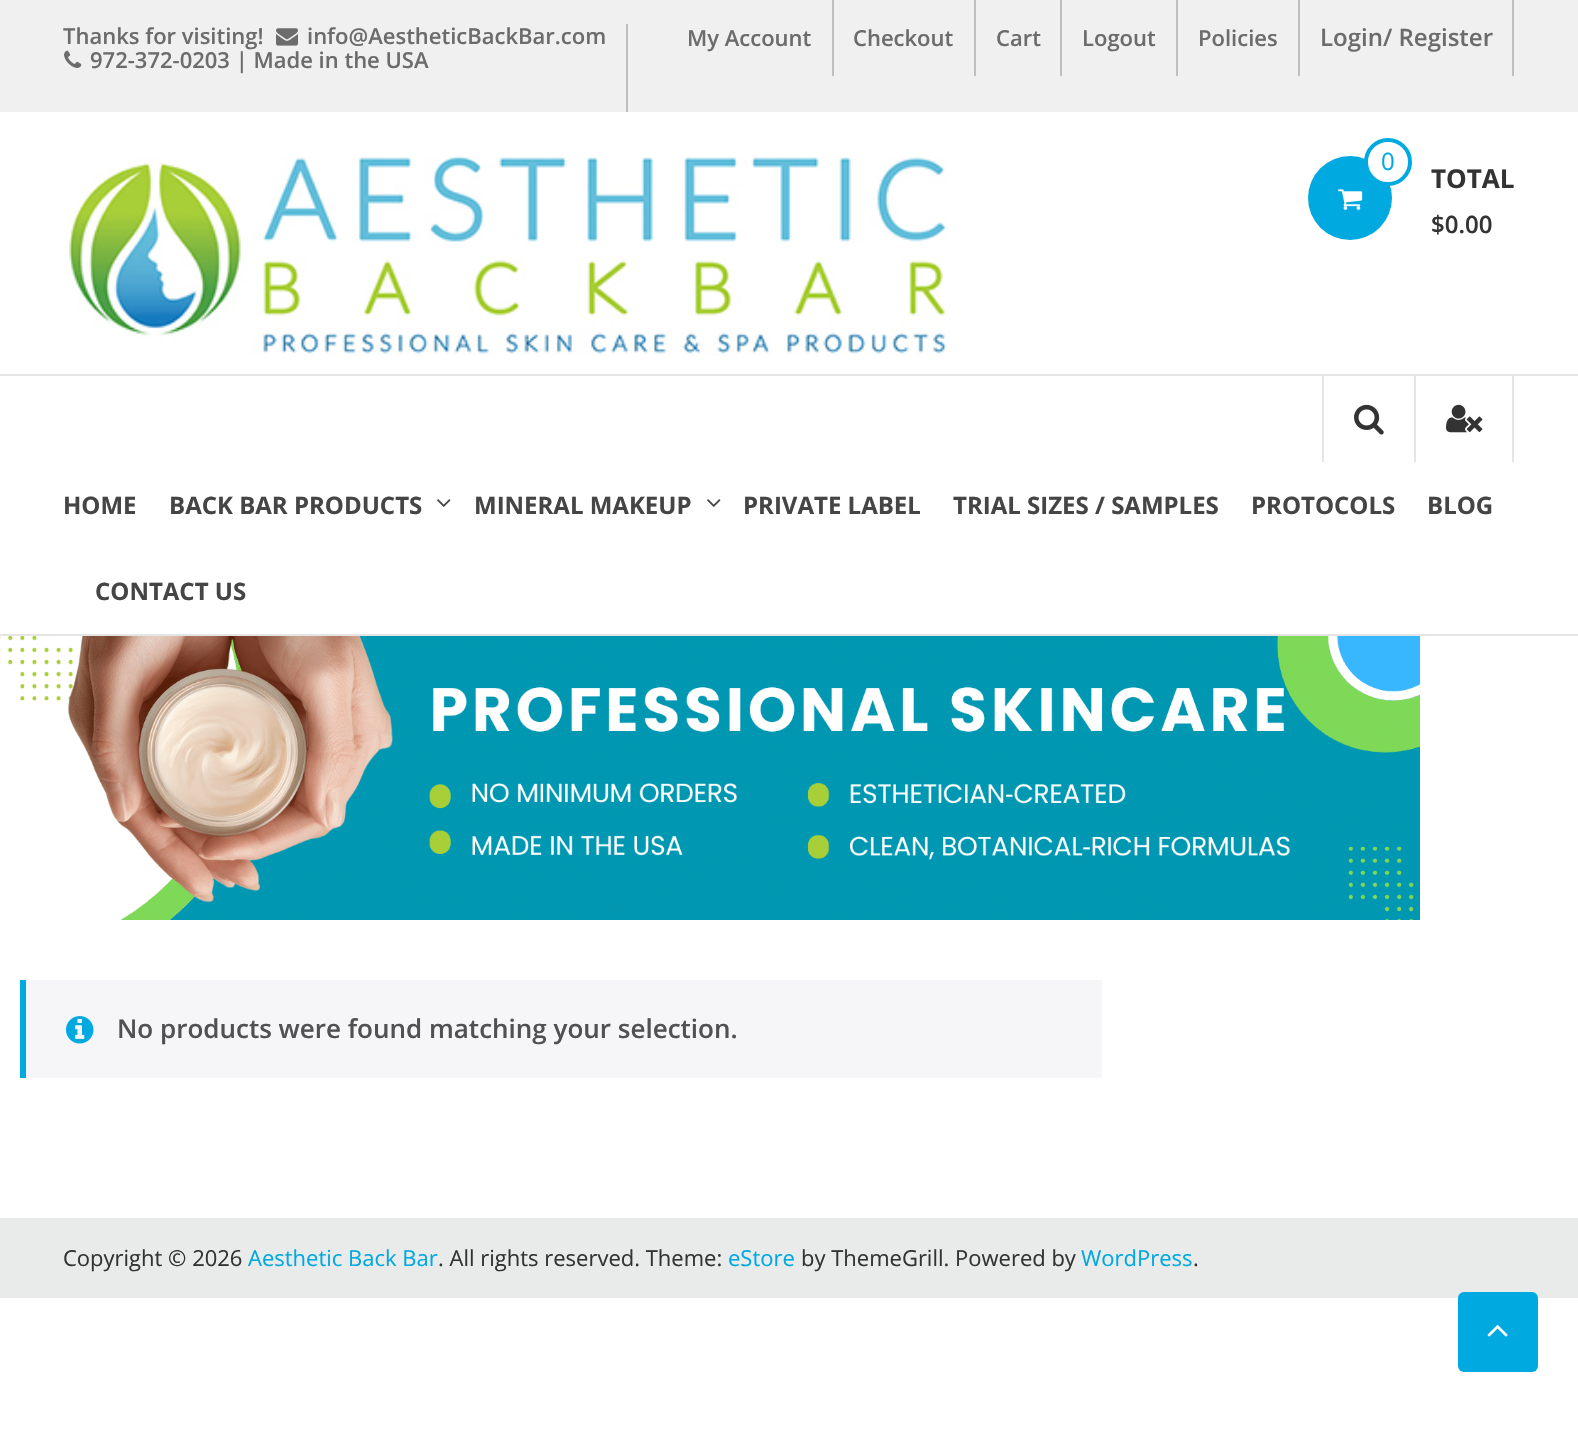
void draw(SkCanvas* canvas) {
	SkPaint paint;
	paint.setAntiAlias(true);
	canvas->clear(0xffffffff);
	paint.setColor(0xfff0f0f0);
	canvas->drawRect(SkRect::MakeXYWH(0, 0, 1578, 112), paint);
	paint.setColor(0xffc0bfbf);
	canvas->drawRect(SkRect::MakeXYWH(626, 24, 2, 88), paint);
	SkFont f1(fontMgr->matchFamilyStyle("Open Sans", SkFontStyle(600, SkFontStyle::kNormal_Width, SkFontStyle::kUpright_Slant)), 22);
	f1.setSubpixel(true);
	paint.setColor(0xff6d6c6c);
	canvas->drawString("Thanks for visiting!", 63, 44, f1, paint);
	canvas->drawImageRect(SkImages::DeferredFromEncodedData(SkData::MakeFromFileName("img1.png")), SkRect::MakeXYWH(276, 28, 22, 18), SkSamplingOptions());
	canvas->drawString("info@AestheticBackBar.com", 307, 44, f1, paint);
	canvas->drawImageRect(SkImages::DeferredFromEncodedData(SkData::MakeFromFileName("img2.png")), SkRect::MakeXYWH(64, 50, 18, 18), SkSamplingOptions());
	canvas->drawString("972-372-0203 | Made in the USA", 90, 68, f1, paint);
	paint.setColor(0xffc0bfbf);
	canvas->drawRect(SkRect::MakeXYWH(832, 0, 2, 76), paint);
	paint.setColor(0xff6d6c6c);
	canvas->drawString("My Account", 687, 46, f1, paint);
	paint.setColor(0xffc0bfbf);
	canvas->drawRect(SkRect::MakeXYWH(974, 0, 2, 76), paint);
	paint.setColor(0xff6d6c6c);
	canvas->drawString("Checkout", 853, 46, f1, paint);
	paint.setColor(0xffc0bfbf);
	canvas->drawRect(SkRect::MakeXYWH(1060, 0, 2, 76), paint);
	paint.setColor(0xff6d6c6c);
	canvas->drawString("Cart", 996, 46, f1, paint);
	paint.setColor(0xffc0bfbf);
	canvas->drawRect(SkRect::MakeXYWH(1176, 0, 2, 76), paint);
	paint.setColor(0xff6d6c6c);
	canvas->drawString("Logout", 1082, 46, f1, paint);
	paint.setColor(0xffc0bfbf);
	canvas->drawRect(SkRect::MakeXYWH(1298, 0, 2, 76), paint);
	paint.setColor(0xff6d6c6c);
	canvas->drawString("Policies", 1198, 46, f1, paint);
	paint.setColor(0xffc0bfbf);
	canvas->drawRect(SkRect::MakeXYWH(1512, 0, 2, 76), paint);
	SkFont f2(fontMgr->matchFamilyStyle("Open Sans", SkFontStyle(600, SkFontStyle::kNormal_Width, SkFontStyle::kUpright_Slant)), 24);
	f2.setSubpixel(true);
	paint.setColor(0xff6d6c6c);
	canvas->drawString("Login/ Register", 1320, 46, f2, paint);
	canvas->drawImageRect(SkImages::DeferredFromEncodedData(SkData::MakeFromFileName("img3.png")), SkRect::MakeXYWH(69, 156, 878, 200), SkSamplingOptions());
	paint.setColor(0xff00a9e0);
	canvas->drawCircle(1350, 198, 42, paint);
	paint.setColor(0xffffffff);
	canvas->drawCircle(1388, 162, 22, paint);
	paint.setStroke(true);
	paint.setStrokeWidth(4);
	paint.setColor(0xff00a9e0);
	canvas->drawCircle(1388, 162, 22, paint);
	SkFont f3(fontMgr->matchFamilyStyle("Open Sans", SkFontStyle::Normal()), 24);
	f3.setSubpixel(true);
	paint.setStroke(false);
	canvas->drawString("0", 1381, 170, f3, paint);
	canvas->drawImageRect(SkImages::DeferredFromEncodedData(SkData::MakeFromFileName("img4.png")), SkRect::MakeXYWH(1338, 189, 25, 21), SkSamplingOptions());
	SkFont f4(fontMgr->matchFamilyStyle("Open Sans", SkFontStyle::Bold()), 26);
	f4.setSubpixel(true);
	paint.setColor(0xff333333);
	canvas->drawString("TOTAL", 1431, 188, f4, paint);
	canvas->drawString("$0.00", 1431, 233, f2, paint);
	paint.setColor(0xffe5e5e5);
	canvas->drawRect(SkRect::MakeXYWH(0, 374, 1578, 2), paint);
	canvas->drawRect(SkRect::MakeXYWH(0, 634, 1578, 2), paint);
	canvas->drawRect(SkRect::MakeXYWH(1322, 376, 2, 86), paint);
	canvas->drawImageRect(SkImages::DeferredFromEncodedData(SkData::MakeFromFileName("img5.png")), SkRect::MakeXYWH(1354, 404, 30, 31), SkSamplingOptions());
	canvas->drawRect(SkRect::MakeXYWH(1512, 376, 2, 86), paint);
	canvas->drawRect(SkRect::MakeXYWH(1414, 376, 2, 86), paint);
	canvas->drawImageRect(SkImages::DeferredFromEncodedData(SkData::MakeFromFileName("img6.png")), SkRect::MakeXYWH(1446, 404, 37, 29), SkSamplingOptions());
	SkFont f5(fontMgr->matchFamilyStyle("Open Sans", SkFontStyle::Bold()), 24);
	f5.setSubpixel(true);
	paint.setColor(0xff454545);
	canvas->drawString("HOME", 63, 514, f5, paint);
	canvas->drawString("BACK BAR PRODUCTS", 169, 514, f5, paint);
	canvas->drawImageRect(SkImages::DeferredFromEncodedData(SkData::MakeFromFileName("img7.png")), SkRect::MakeXYWH(437, 499, 14, 8), SkSamplingOptions());
	canvas->drawString("MINERAL MAKEUP", 474, 514, f5, paint);
	canvas->drawImageRect(SkImages::DeferredFromEncodedData(SkData::MakeFromFileName("img7.png")), SkRect::MakeXYWH(707, 499, 14, 8), SkSamplingOptions());
	canvas->drawString("PRIVATE LABEL", 743, 514, f5, paint);
	canvas->drawString("TRIAL SIZES / SAMPLES", 953, 514, f5, paint);
	canvas->drawString("PROTOCOLS", 1251, 514, f5, paint);
	canvas->drawString("BLOG", 1427, 514, f5, paint);
	canvas->drawString("CONTACT US", 95, 600, f5, paint);
	canvas->drawImageRect(SkImages::DeferredFromEncodedData(SkData::MakeFromFileName("img8.png")), SkRect::MakeXYWH(0, 636, 1420, 284), SkSamplingOptions());
	paint.setColor(0xfff6f5f8);
	canvas->drawRect(SkRect::MakeXYWH(26, 980, 1076, 98), paint);
	paint.setColor(0xff00a9e0);
	canvas->drawRect(SkRect::MakeXYWH(20, 980, 6, 98), paint);
	canvas->drawImageRect(SkImages::DeferredFromEncodedData(SkData::MakeFromFileName("img9.png")), SkRect::MakeXYWH(66, 1016, 28, 28), SkSamplingOptions());
	SkFont f6(fontMgr->matchFamilyStyle("Open Sans", SkFontStyle(600, SkFontStyle::kNormal_Width, SkFontStyle::kUpright_Slant)), 26);
	f6.setSubpixel(true);
	paint.setColor(0xff515151);
	canvas->drawString("No products were found matching your selection.", 117, 1038, f6, paint);
	paint.setColor(0xffe9ebeb);
	canvas->drawRect(SkRect::MakeXYWH(0, 1218, 1578, 80), paint);
	SkFont f7(fontMgr->matchFamilyStyle("Open Sans", SkFontStyle::Normal()), 22);
	f7.setSubpixel(true);
	paint.setColor(0xff333333);
	canvas->drawString("Copyright © 2026", 63, 1266, f7, paint);
	paint.setColor(0xff00a9e0);
	canvas->drawString("Aesthetic Back Bar", 248, 1266, f7, paint);
	paint.setColor(0xff333333);
	canvas->drawString(". All rights reserved. Theme:", 438, 1266, f7, paint);
	paint.setColor(0xff00a9e0);
	canvas->drawString("eStore", 728, 1266, f7, paint);
	paint.setColor(0xff333333);
	canvas->drawString("by ThemeGrill. Powered by", 801, 1266, f7, paint);
	paint.setColor(0xff00a9e0);
	canvas->drawString("WordPress", 1081, 1266, f7, paint);
	paint.setColor(0xff333333);
	canvas->drawString(".", 1193, 1266, f7, paint);
	paint.setColor(0xff00a9e0);
	canvas->drawRoundRect(SkRect::MakeXYWH(1458, 1292, 80, 80), 6, 6, paint);
	canvas->drawImageRect(SkImages::DeferredFromEncodedData(SkData::MakeFromFileName("img10.png")), SkRect::MakeXYWH(1487, 1325, 21, 12), SkSamplingOptions());
}
